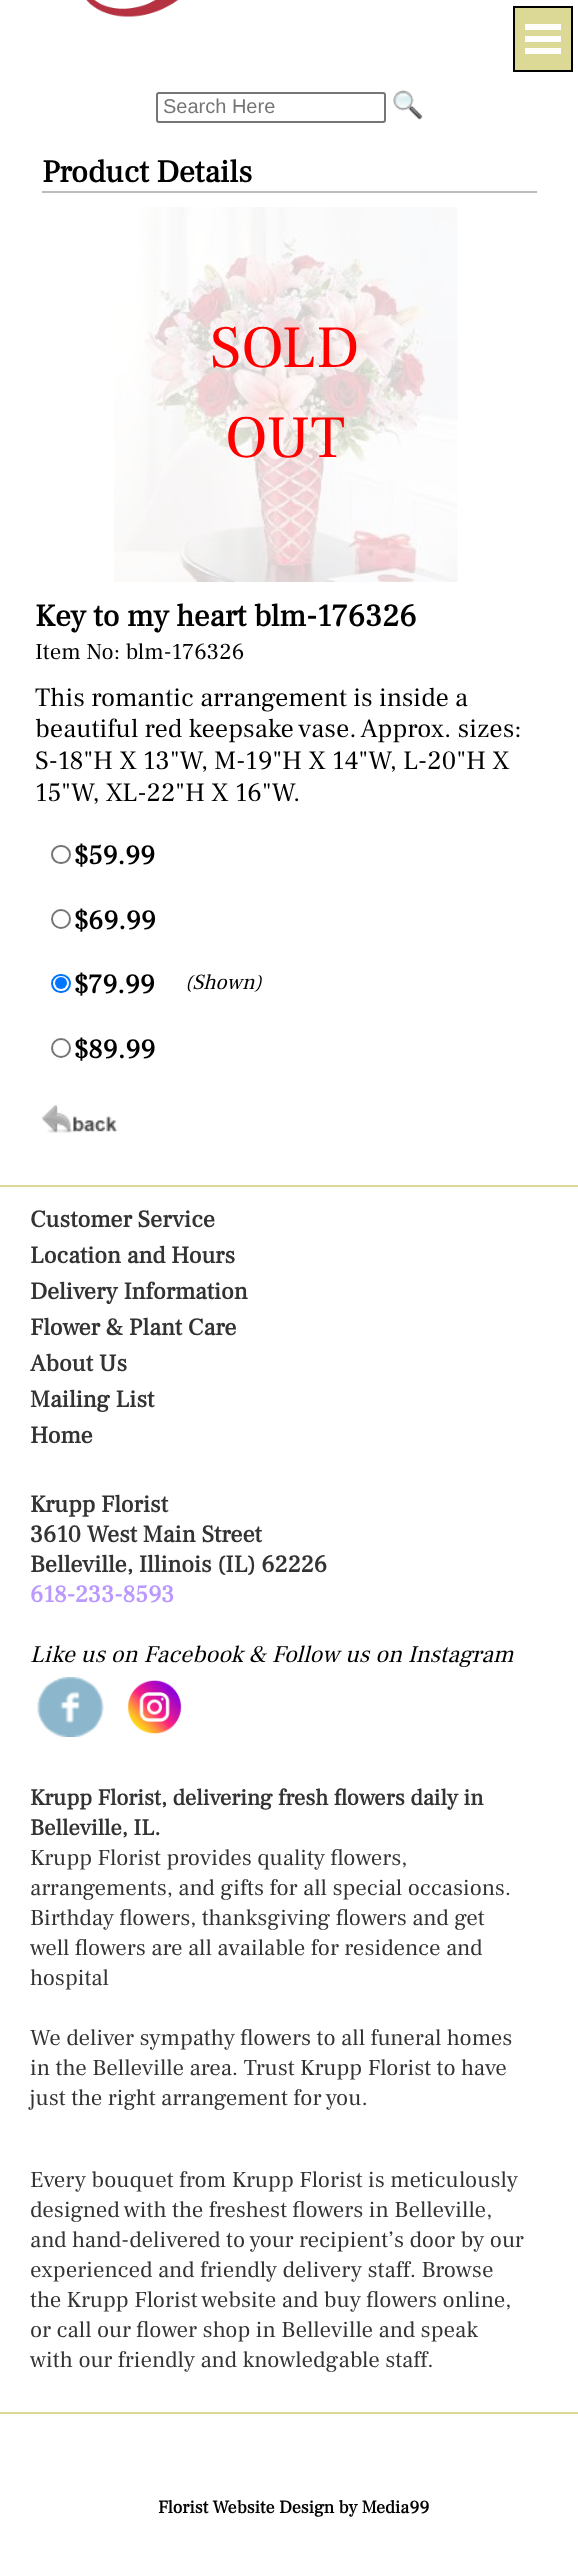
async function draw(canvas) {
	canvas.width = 578;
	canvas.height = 2550;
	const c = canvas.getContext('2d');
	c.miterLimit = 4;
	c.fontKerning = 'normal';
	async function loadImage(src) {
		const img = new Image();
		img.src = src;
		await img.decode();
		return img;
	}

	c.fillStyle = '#fff';
	c.fillRect(0, 0, 578, 2550);
	c.fillStyle = '#dbd995';
	c.beginPath();
	c.rect(514, 7, 58, 64);
	c.fill();
	c.strokeStyle = '#000';
	c.lineWidth = 2;
	c.stroke();
	for (const [x, y, w, h, color] of [
		[525, 24, 36, 6, '#fff'],
		[525, 36, 36, 6, '#fff'],
		[525, 48, 36, 6, '#fff'],
	]) {
		c.fillStyle = color;
		c.fillRect(x, y, w, h);
	}
	c.drawImage(await loadImage('img1.png'), 86, 0, 93, 17);
	c.beginPath();
	c.roundRect(157, 93, 228, 29, 2);
	c.strokeStyle = '#767676';
	c.stroke();
	c.font = '20px Liberation Sans';
	c.fillStyle = '#757575';
	c.fillText('Search Here', 163, 113);
	c.drawImage(await loadImage('img2.png'), 393, 90, 30, 30);
	c.fillStyle = '#bcbcbc';
	c.fillRect(42, 191, 495, 2);
	c.font = 'bold 31.75px Frank Ruhl Libre';
	c.fillStyle = '#000';
	c.fillText('Product Details', 42, 182);
	c.drawImage(await loadImage('img3.png'), 114, 207, 344, 375);
	c.font = '60px Frank Ruhl Libre';
	c.fillStyle = '#f00';
	c.fillText('SOLD', 210, 367);
	c.fillText('OUT', 225, 457);
	c.font = 'bold 31.25px Frank Ruhl Libre';
	c.fillStyle = '#000';
	c.fillText('Key to my heart blm-176326', 35, 626);
	c.font = '22.8px Frank Ruhl Libre';
	c.fillText('Item No: blm-176326', 35, 659);
	c.font = '26.4px Frank Ruhl Libre';
	for (const [text, x, y] of [
		['This romantic arrangement is inside a', 35, 706],
		['beautiful red keepsake vase. Approx. sizes:', 35, 737],
		['S-18"H X 13"W, M-19"H X 14"W, L-20"H X', 35, 769],
		['15"W, XL-22"H X 16"W.', 35, 801],
	]) {
		c.fillText(text, x, y);
	}
	c.beginPath();
	c.roundRect(52, 846, 18, 17, 8.5);
	c.stroke();
	c.font = 'bold 27px Frank Ruhl Libre';
	c.fillText('$59.99', 74, 864);
	c.beginPath();
	c.arc(61, 919, 9, 0, 2 * Math.PI);
	c.stroke();
	c.fillText('$69.99', 74, 929);
	c.beginPath();
	c.roundRect(52, 975, 18, 17, 8.5);
	c.strokeStyle = '#0075ff';
	c.stroke();
	c.fillStyle = '#0075ff';
	c.beginPath();
	c.arc(61, 983, 6, 0, 2 * Math.PI);
	c.fill();
	c.fillStyle = '#000';
	c.fillText('$79.99', 74, 993);
	c.font = 'italic 21.5px Frank Ruhl Libre';
	c.fillText('(Shown)', 185, 989);
	c.beginPath();
	c.arc(61, 1048, 9, 0, 2 * Math.PI);
	c.strokeStyle = '#767676';
	c.stroke();
	c.font = 'bold 27px Frank Ruhl Libre';
	c.fillText('$89.99', 74, 1058);
	c.drawImage(await loadImage('img4.png'), 42, 1105, 76, 28);
	c.fillStyle = '#dbd995';
	c.fillRect(0, 1185, 578, 2);
	c.fillRect(0, 2412, 578, 2);
	c.font = 'bold 24px Frank Ruhl Libre';
	c.fillStyle = '#333';
	for (const [text, x, y] of [
		['Customer Service', 30, 1227],
		['Location and Hours', 30, 1263],
		['Delivery Information', 30, 1299],
		['Flower & Plant Care', 30, 1335],
		['About Us', 30, 1371],
		['Mailing List', 30, 1407],
		['Home', 30, 1443],
		['Krupp Florist', 30, 1512],
		['3610 West Main Street', 30, 1542],
		['Belleville, Illinois (IL) 62226', 30, 1572],
	]) {
		c.fillText(text, x, y);
	}
	c.fillStyle = '#ba98ff';
	c.fillText('618-233-8593', 30, 1602);
	c.font = 'italic 24px Frank Ruhl Libre';
	c.fillStyle = '#000';
	c.fillText('Like us on Facebook & Follow us on Instagram', 30, 1662);
	c.drawImage(await loadImage('img5.png'), 37, 1677, 67, 60);
	c.drawImage(await loadImage('img6.png'), 127, 1680, 55, 54);
	c.font = 'bold 22.8px Frank Ruhl Libre';
	c.fillStyle = '#333';
	c.fillText('Krupp Florist, delivering fresh flowers daily in', 30, 1805);
	c.fillText('Belleville, IL.', 30, 1835);
	c.font = '22.8px Frank Ruhl Libre';
	for (const [text, x, y] of [
		['Krupp Florist provides quality flowers,', 30, 1865],
		['arrangements, and gifts for all special occasions.', 30, 1895],
		['Birthday flowers, thanksgiving flowers and get', 30, 1925],
		['well flowers are all available for residence and', 30, 1955],
		['hospital', 30, 1985],
		['We deliver sympathy flowers to all funeral homes', 30, 2045],
		['in the Belleville area. Trust Krupp Florist to have', 30, 2075],
		['just the right arrangement for you.', 30, 2105],
		['Every bouquet from Krupp Florist is meticulously', 30, 2187],
		['designed with the freshest flowers in Belleville,', 30, 2217],
		['and hand-delivered to your recipient’s door by our', 30, 2247],
		['experienced and friendly delivery staff. Browse', 30, 2277],
		['the Krupp Florist website and buy flowers online,', 30, 2307],
		['or call our flower shop in Belleville and speak', 30, 2337],
		['with our friendly and knowledgable staff.', 30, 2367],
	]) {
		c.fillText(text, x, y);
	}
	c.font = 'bold 18px Frank Ruhl Libre';
	c.fillStyle = '#000';
	c.fillText('Florist Website Design by Media99', 158, 2513);
}

draw(document.querySelector('canvas'));
